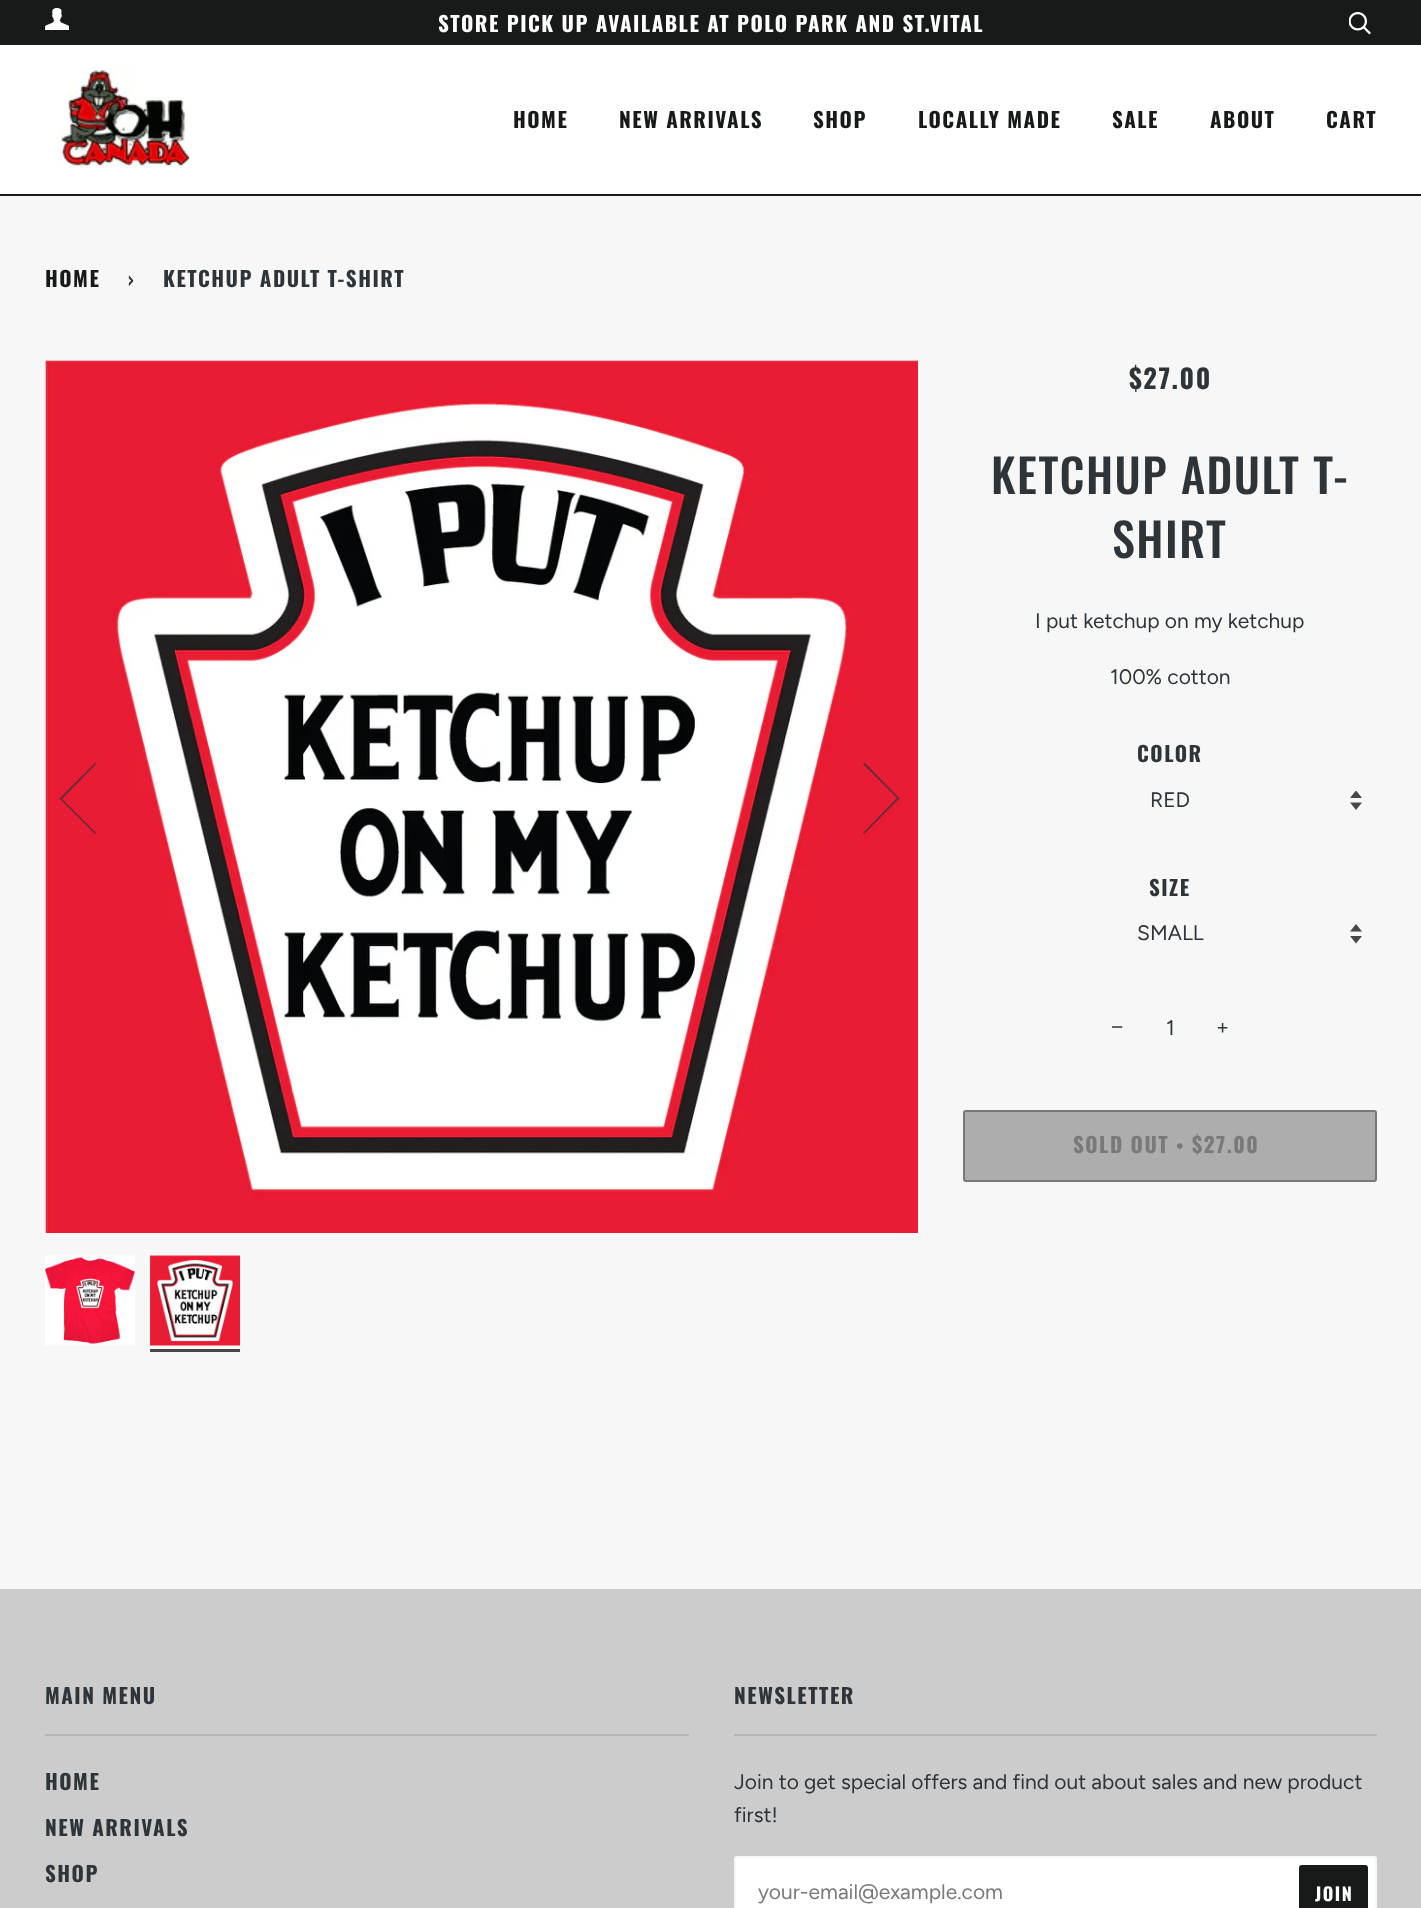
async function draw(canvas) {
	canvas.width = 1421;
	canvas.height = 1908;
	const c = canvas.getContext('2d');
	c.miterLimit = 4;
	c.fontKerning = 'normal';
	async function loadImage(src) {
		const img = new Image();
		img.src = src;
		await img.decode();
		return img;
	}

	c.fillStyle = '#fff';
	c.fillRect(0, 0, 1421, 1908);
	c.fillStyle = '#181919';
	c.fillRect(0, 0, 1421, 45);
	c.drawImage(await loadImage('img1.png'), 45, 8, 24, 22);
	c.letterSpacing = '1.5px';
	c.font = 'bold 21px Oswald';
	c.fillStyle = '#fff';
	c.fillText('STORE PICK UP AVAILABLE AT POLO PARK AND ST.VITAL', 438, 32);
	c.drawImage(await loadImage('img2.png'), 1349, 12, 22, 23);
	c.fillStyle = '#181919';
	c.fillRect(0, 194, 1421, 2);
	c.drawImage(await loadImage('img3.png'), 58, 67, 132, 101);
	for (const [text, x, y] of [
		['HOME', 513, 128],
		['NEW ARRIVALS', 619, 128],
		['SHOP', 813, 128],
		['LOCALLY MADE', 918, 128],
		['SALE', 1112, 128],
		['ABOUT', 1210, 128],
		['CART', 1326, 128],
	]) {
		c.fillText(text, x, y);
	}
	c.fillStyle = '#f7f7f7';
	c.fillRect(0, 196, 1421, 1393);
	c.fillStyle = '#181919';
	c.fillText('HOME', 45, 287);
	c.fillStyle = '#2e3438';
	c.fillText('›', 128, 287);
	c.fillText('KETCHUP ADULT T-SHIRT', 163, 287);
	c.drawImage(await loadImage('img4.png'), 45, 360, 873, 873);
	c.fillStyle = '#5d2e37';
	c.beginPath();
	c.moveTo(60, 799);
	c.lineTo(95, 834);
	c.lineTo(96, 833);
	c.lineTo(62, 799);
	c.lineTo(96, 764);
	c.lineTo(95, 763);
	c.lineTo(59, 799);
	c.closePath();
	c.fill();
	c.beginPath();
	c.moveTo(899, 798);
	c.lineTo(865, 763);
	c.lineTo(863, 764);
	c.lineTo(897, 798);
	c.lineTo(863, 833);
	c.lineTo(864, 834);
	c.lineTo(900, 798);
	c.closePath();
	c.fill();
	c.drawImage(await loadImage('img5.png'), 45, 1255, 90, 91);
	c.drawImage(await loadImage('img6.png'), 150, 1255, 90, 91);
	c.fillStyle = '#464747';
	c.fillRect(150, 1349, 90, 3);
	c.font = 'bold 26.5px Oswald';
	c.fillStyle = '#2e3438';
	c.fillText('$27.00', 1129, 389);
	c.font = '500 46.25px Oswald';
	c.fillText('KETCHUP ADULT T-', 991, 494);
	c.fillText('SHIRT', 1112, 558);
	c.letterSpacing = '0px';
	c.font = '21px Figtree';
	c.fillText('I put ketchup on my ketchup', 1035, 628);
	c.fillText('100% cotton', 1110, 684);
	c.letterSpacing = '1.5px';
	c.font = 'bold 21px Oswald';
	c.fillText('COLOR', 1137, 762);
	c.drawImage(await loadImage('img7.png'), 1350, 791, 12, 19);
	c.letterSpacing = '0px';
	c.font = '21px Figtree';
	c.fillText('RED', 1150, 807);
	c.letterSpacing = '1.5px';
	c.font = 'bold 21px Oswald';
	c.fillText('SIZE', 1149, 896);
	c.drawImage(await loadImage('img8.png'), 1350, 924, 12, 20);
	c.letterSpacing = '0px';
	c.font = '21px Figtree';
	c.fillText('SMALL', 1137, 940);
	c.font = '21px Liberation Sans';
	c.fillText('−', 1111, 1034);
	c.font = '21px Figtree';
	c.fillText('1', 1166, 1035);
	c.fillText('+', 1216, 1034);
	c.fillStyle = '#adadad';
	c.beginPath();
	c.roundRect(963, 1110, 414, 72, 3);
	c.fill();
	c.beginPath();
	c.roundRect(964, 1111, 412, 70, 2);
	c.strokeStyle = '#0000004d';
	c.lineWidth = 2;
	c.stroke();
	c.letterSpacing = '1.5px';
	c.font = 'bold 21px Oswald';
	c.fillStyle = '#797979';
	c.fillText('SOLD OUT', 1073, 1153);
	c.font = 'bold 21px Liberation Serif';
	c.fillText('•', 1176, 1153);
	c.font = 'bold 21px Oswald';
	c.fillText('$27.00', 1192, 1153);
	c.fillStyle = '#ccc';
	c.fillRect(0, 1589, 1421, 319);
	c.fillStyle = '#2e3438';
	c.fillText('MAIN MENU', 45, 1704);
	c.fillStyle = '#b4b5b6';
	c.fillRect(45, 1734, 644, 2);
	c.fillStyle = '#2e3438';
	for (const [text, x, y] of [
		['HOME', 45, 1790],
		['NEW ARRIVALS', 45, 1836],
		['SHOP', 45, 1882],
		['NEWSLETTER', 734, 1704],
	]) {
		c.fillText(text, x, y);
	}
	c.fillStyle = '#b4b5b6';
	c.fillRect(734, 1734, 643, 2);
	c.letterSpacing = '0px';
	c.font = '21px Figtree';
	c.fillStyle = '#2e3438';
	c.fillText('Join to get special offers and find out about sales and new product', 734, 1789);
	c.fillText('first!', 734, 1822);
	c.fillStyle = '#fff';
	c.beginPath();
	c.roundRect(735, 1857, 641, 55, 2);
	c.fill();
	c.strokeStyle = '#f7f7f7';
	c.stroke();
	c.fillStyle = '#797979';
	c.fillText('your-email@example.com', 758, 1899);
	c.fillStyle = '#181919';
	c.beginPath();
	c.roundRect(1299, 1865, 69, 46, 3);
	c.fill();
	c.letterSpacing = '1.5px';
	c.font = 'bold 18px Oswald';
	c.fillStyle = '#fff';
	c.fillText('JOIN', 1315, 1901);
}

draw(document.querySelector('canvas'));
